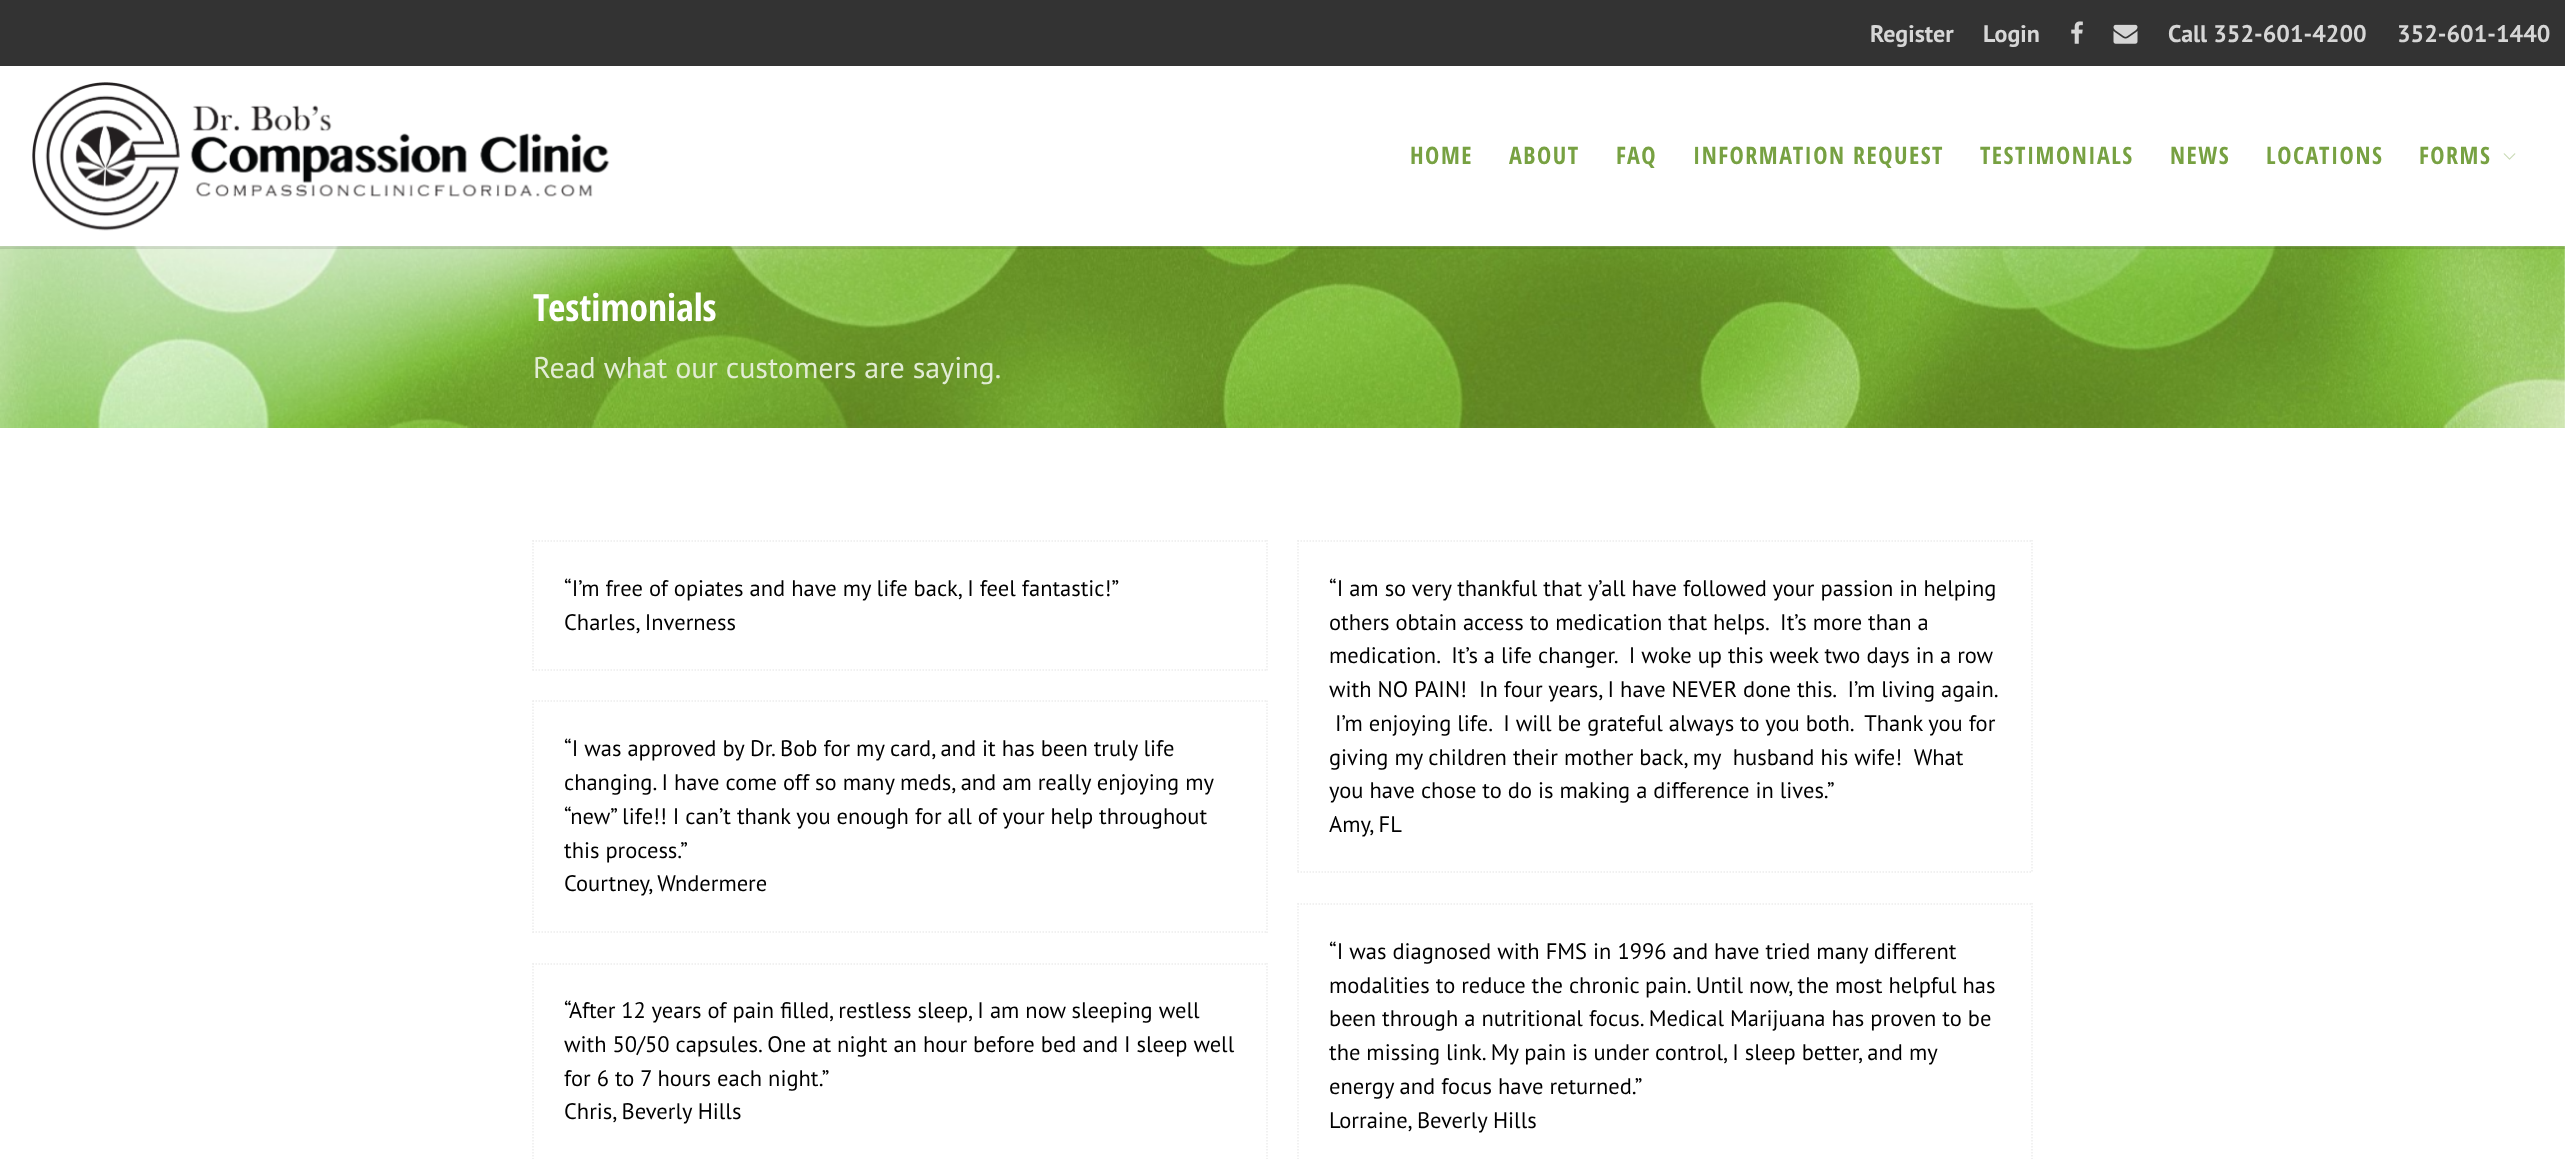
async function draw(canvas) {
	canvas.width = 2565;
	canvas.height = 1159;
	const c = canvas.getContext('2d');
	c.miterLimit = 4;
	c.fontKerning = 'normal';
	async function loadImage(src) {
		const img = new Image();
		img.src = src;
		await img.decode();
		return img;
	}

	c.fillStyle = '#fff';
	c.fillRect(0, 0, 2565, 1159);
	c.fillStyle = '#333';
	c.fillRect(0, 0, 2565, 66);
	c.font = 'bold 24px PT Sans';
	c.fillStyle = '#d6d6d6';
	c.fillText('Register', 1870, 42);
	c.fillText('Login', 1983, 42);
	c.drawImage(await loadImage('img1.png'), 2071, 21, 12, 23);
	c.drawImage(await loadImage('img2.png'), 2113, 24, 25, 20);
	c.fillText('Call 352-601-4200', 2168, 42);
	c.fillText('352-601-1440', 2397, 42);
	c.drawImage(await loadImage('img5.png'), 0, 246, 2565, 182);
	c.fillStyle = '#0000001a';
	c.fillRect(0, 246, 2565, 3);
	c.drawImage(await loadImage('img3.png'), 32, 82, 578, 149);
	c.letterSpacing = '1.5px';
	c.font = 'bold 24px Open Sans Condensed';
	c.fillStyle = '#77a142';
	for (const [text, x, y] of [
		['HOME', 1410, 164],
		['ABOUT', 1509, 164],
		['FAQ', 1616, 164],
		['INFORMATION REQUEST', 1693, 164],
		['TESTIMONIALS', 1980, 164],
		['NEWS', 2170, 164],
		['LOCATIONS', 2266, 164],
		['FORMS', 2419, 164],
	]) {
		c.fillText(text, x, y);
	}
	c.drawImage(await loadImage('img4.png'), 2503, 153, 13, 7);
	c.letterSpacing = '0px';
	c.font = 'bold 37.5px Open Sans Condensed';
	c.fillStyle = '#fff';
	c.fillText('Testimonials', 533, 321);
	c.font = '30px PT Sans';
	c.fillStyle = '#e2ecd5';
	c.fillText('Read what our customers are saying.', 533, 378);
	c.beginPath();
	c.moveTo(532.5, 541);
	c.lineTo(1267.5, 541);
	c.strokeStyle = '#ededed';
	c.lineWidth = 1.5;
	c.setLineDash([1.5, 1.5]);
	c.stroke();
	c.beginPath();
	c.moveTo(1267, 540);
	c.lineTo(1267, 670.5);
	c.stroke();
	c.beginPath();
	c.moveTo(532.5, 670);
	c.lineTo(1267.5, 670);
	c.stroke();
	c.beginPath();
	c.moveTo(533, 540);
	c.lineTo(533, 670.5);
	c.stroke();
	c.font = '22.5px PT Sans';
	c.fillStyle = '#000';
	c.fillText('“I’m free of opiates and have my life back, I feel fantastic!”', 564, 596);
	c.fillText('Charles, Inverness', 564, 630);
	c.beginPath();
	c.moveTo(1297.5, 541);
	c.lineTo(2032.5, 541);
	c.stroke();
	c.beginPath();
	c.moveTo(2032, 540);
	c.lineTo(2032, 873);
	c.stroke();
	c.beginPath();
	c.moveTo(1297.5, 872);
	c.lineTo(2032.5, 872);
	c.stroke();
	c.beginPath();
	c.moveTo(1298, 540);
	c.lineTo(1298, 873);
	c.stroke();
	for (const [text, x, y] of [
		['“I am so very thankful that y’all have followed your passion in helping', 1329, 596],
		['others obtain access to medication that helps.  It’s more than a', 1329, 630],
		['medication.  It’s a life changer.  I woke up this week two days in a row', 1329, 663],
		['with NO PAIN!  In four years, I have NEVER done this.  I’m living again.', 1329, 697],
		['I’m enjoying life.  I will be grateful always to you both.  Thank you for', 1335, 731],
		['giving my children their mother back, my  husband his wife!  What', 1329, 765],
		['you have chose to do is making a difference in lives.”', 1329, 798],
		['Amy, FL', 1329, 832],
	]) {
		c.fillText(text, x, y);
	}
	c.beginPath();
	c.moveTo(532.5, 701);
	c.lineTo(1267.5, 701);
	c.stroke();
	c.beginPath();
	c.moveTo(1267, 700.5);
	c.lineTo(1267, 933);
	c.stroke();
	c.beginPath();
	c.moveTo(532.5, 932);
	c.lineTo(1267.5, 932);
	c.stroke();
	c.beginPath();
	c.moveTo(533, 700.5);
	c.lineTo(533, 933);
	c.stroke();
	for (const [text, x, y] of [
		['“I was approved by Dr. Bob for my card, and it has been truly life', 564, 756],
		['changing. I have come off so many meds, and am really enjoying my', 564, 790],
		['“new” life!! I can’t thank you enough for all of your help throughout', 564, 824],
		['this process.”', 564, 858],
		['Courtney, Wndermere', 564, 891],
	]) {
		c.fillText(text, x, y);
	}
	c.beginPath();
	c.moveTo(532.5, 964);
	c.lineTo(1267.5, 964);
	c.stroke();
	c.beginPath();
	c.moveTo(1267, 963);
	c.lineTo(1267, 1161);
	c.stroke();
	c.beginPath();
	c.moveTo(533, 963);
	c.lineTo(533, 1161);
	c.stroke();
	for (const [text, x, y] of [
		['“After 12 years of pain filled, restless sleep, I am now sleeping well', 564, 1018],
		['with 50/50 capsules. One at night an hour before bed and I sleep well', 564, 1052],
		['for 6 to 7 hours each night.”', 564, 1086],
		['Chris, Beverly Hills', 564, 1119],
	]) {
		c.fillText(text, x, y);
	}
	c.beginPath();
	c.moveTo(1297.5, 904);
	c.lineTo(2032.5, 904);
	c.stroke();
	c.beginPath();
	c.moveTo(2032, 903);
	c.lineTo(2032, 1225.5);
	c.stroke();
	c.beginPath();
	c.moveTo(1298, 903);
	c.lineTo(1298, 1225.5);
	c.stroke();
	for (const [text, x, y] of [
		['“I was diagnosed with FMS in 1996 and have tried many different', 1329, 959],
		['modalities to reduce the chronic pain. Until now, the most helpful has', 1329, 993],
		['been through a nutritional focus. Medical Marijuana has proven to be', 1329, 1026],
		['the missing link. My pain is under control, I sleep better, and my', 1329, 1060],
		['energy and focus have returned.”', 1329, 1094],
		['Lorraine, Beverly Hills', 1329, 1128],
	]) {
		c.fillText(text, x, y);
	}
}

draw(document.querySelector('canvas'));
